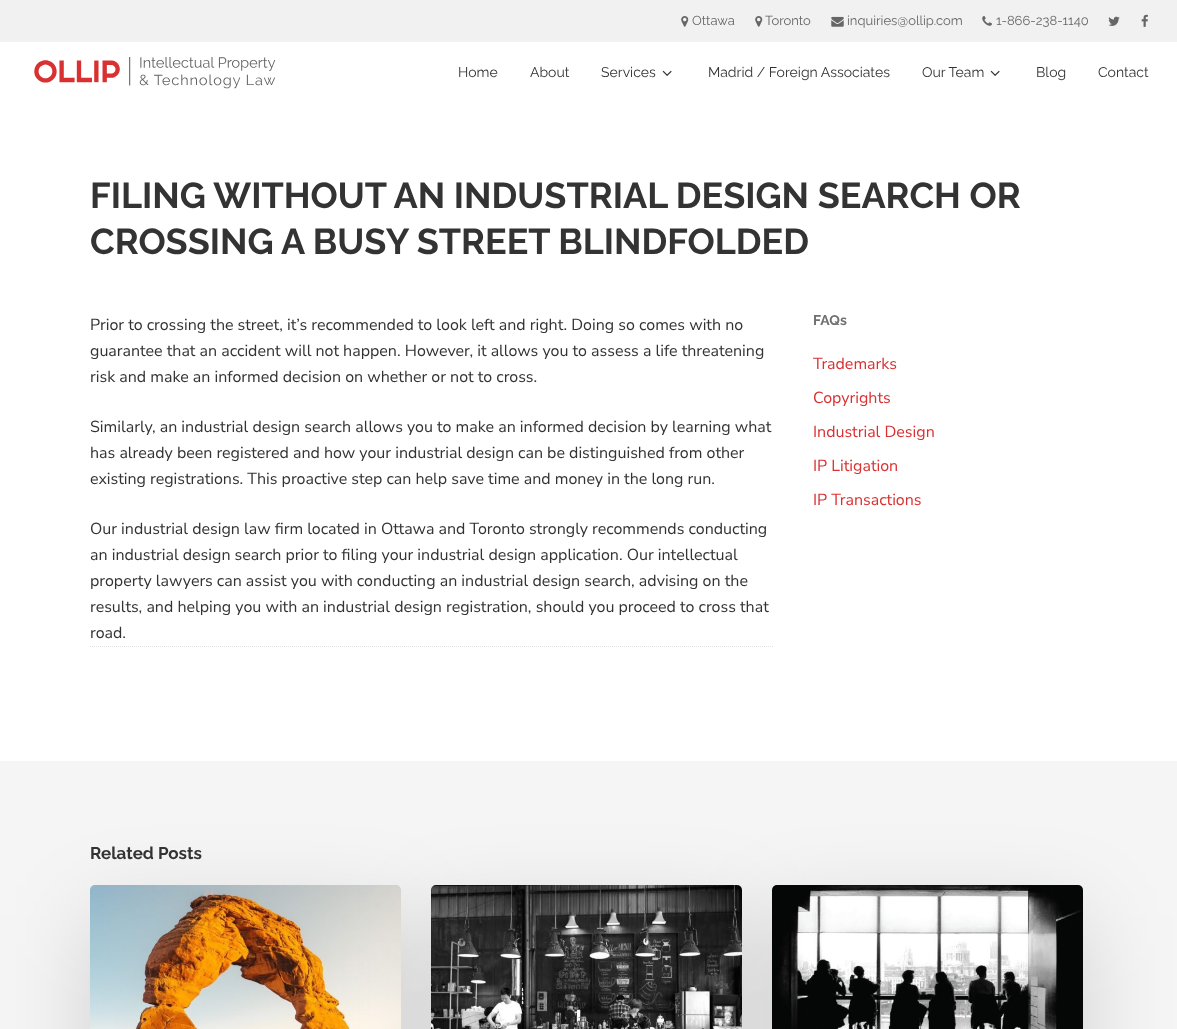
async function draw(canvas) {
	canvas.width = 1177;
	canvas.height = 1029;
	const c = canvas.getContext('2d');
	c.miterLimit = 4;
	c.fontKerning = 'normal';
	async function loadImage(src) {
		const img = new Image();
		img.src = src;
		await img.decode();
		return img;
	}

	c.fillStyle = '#fff';
	c.fillRect(0, 0, 1177, 1029);
	c.fillStyle = '#f5f5f5';
	c.fillRect(0, 761, 1177, 268);
	c.fillStyle = '#f1f1f1';
	c.fillRect(0, 0, 1177, 42);
	c.drawImage(await loadImage('img1.png'), 681, 16, 8, 11);
	c.font = '13px Raleway';
	c.fillStyle = '#666';
	c.fillText('Ottawa', 692, 25);
	c.drawImage(await loadImage('img1.png'), 755, 16, 8, 11);
	c.fillText('Toronto', 765, 25);
	c.drawImage(await loadImage('img2.png'), 831, 16, 13, 11);
	c.fillText('inquiries@ollip.com', 847, 25);
	c.drawImage(await loadImage('img3.png'), 982, 16, 10, 10);
	c.fillText('1-866-238-1140', 996, 25);
	c.drawImage(await loadImage('img4.png'), 1108, 16, 12, 10);
	c.drawImage(await loadImage('img5.png'), 1141, 14, 7, 13);
	c.drawImage(await loadImage('img6.png'), 34, 57, 242, 32);
	c.font = '14px Raleway';
	c.fillStyle = '#333';
	for (const [text, x, y] of [
		['Home', 458, 77],
		['About', 530, 77],
		['Services', 601, 77],
	]) {
		c.fillText(text, x, y);
	}
	c.drawImage(await loadImage('img7.png'), 662, 70, 10, 6);
	c.fillText('Madrid / Foreign Associates', 708, 77);
	c.fillText('Our Team', 922, 77);
	c.drawImage(await loadImage('img7.png'), 990, 70, 10, 6);
	c.fillText('Blog', 1036, 77);
	c.fillText('Contact', 1098, 77);
	c.font = 'bold 36px Raleway';
	c.fillText('FILING WITHOUT AN INDUSTRIAL DESIGN SEARCH OR', 90, 208);
	c.fillText('CROSSING A BUSY STREET BLINDFOLDED', 90, 254);
	c.beginPath();
	c.moveTo(90, 646.5);
	c.lineTo(773, 646.5);
	c.strokeStyle = '#e1e1e1';
	c.setLineDash([1, 1]);
	c.stroke();
	c.font = '200 16px Nunito Sans';
	for (const [text, x, y] of [
		['Prior to crossing the street, it’s recommended to look left and right. Doing so comes with no', 90, 330],
		['guarantee that an accident will not happen. However, it allows you to assess a life threatening', 90, 356],
		['risk and make an informed decision on whether or not to cross.', 90, 382],
		['Similarly, an industrial design search allows you to make an informed decision by learning what', 90, 432],
		['has already been registered and how your industrial design can be distinguished from other', 90, 458],
		['existing registrations. This proactive step can help save time and money in the long run.', 90, 484],
		['Our industrial design law firm located in Ottawa and Toronto strongly recommends conducting', 90, 534],
		['an industrial design search prior to filing your industrial design application. Our intellectual', 90, 560],
		['property lawyers can assist you with conducting an industrial design search, advising on the', 90, 586],
		['results, and helping you with an industrial design registration, should you proceed to cross that', 90, 612],
		['road.', 90, 638],
	]) {
		c.fillText(text, x, y);
	}
	c.font = 'bold 14px Raleway';
	c.fillStyle = '#707070';
	c.fillText('FAQs', 813, 325);
	c.font = '200 16px Nunito Sans';
	c.fillStyle = '#d93031';
	for (const [text, x, y] of [
		['Trademarks', 813, 369],
		['Copyrights', 813, 403],
		['Industrial Design', 813, 437],
		['IP Litigation', 813, 471],
		['IP Transactions', 813, 505],
	]) {
		c.fillText(text, x, y);
	}
	c.fillStyle = '#00000024';
	c.filter = 'blur(45px)';
	c.beginPath();
	c.roundRect(90, 915, 311, 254, 5);
	c.fill();
	c.filter = 'none';
	c.drawImage(await loadImage('img8.png'), 90, 885, 311, 144);
	c.filter = 'blur(45px)';
	c.beginPath();
	c.roundRect(431, 915, 311, 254, 5);
	c.fill();
	c.filter = 'none';
	c.drawImage(await loadImage('img9.png'), 431, 885, 311, 144);
	c.filter = 'blur(45px)';
	c.beginPath();
	c.roundRect(772, 915, 311, 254, 5);
	c.fill();
	c.filter = 'none';
	c.drawImage(await loadImage('img10.png'), 772, 885, 311, 144);
	c.font = 'bold 17px Raleway';
	c.fillStyle = '#333';
	c.fillText('Related Posts', 90, 859);
}

draw(document.querySelector('canvas'));
